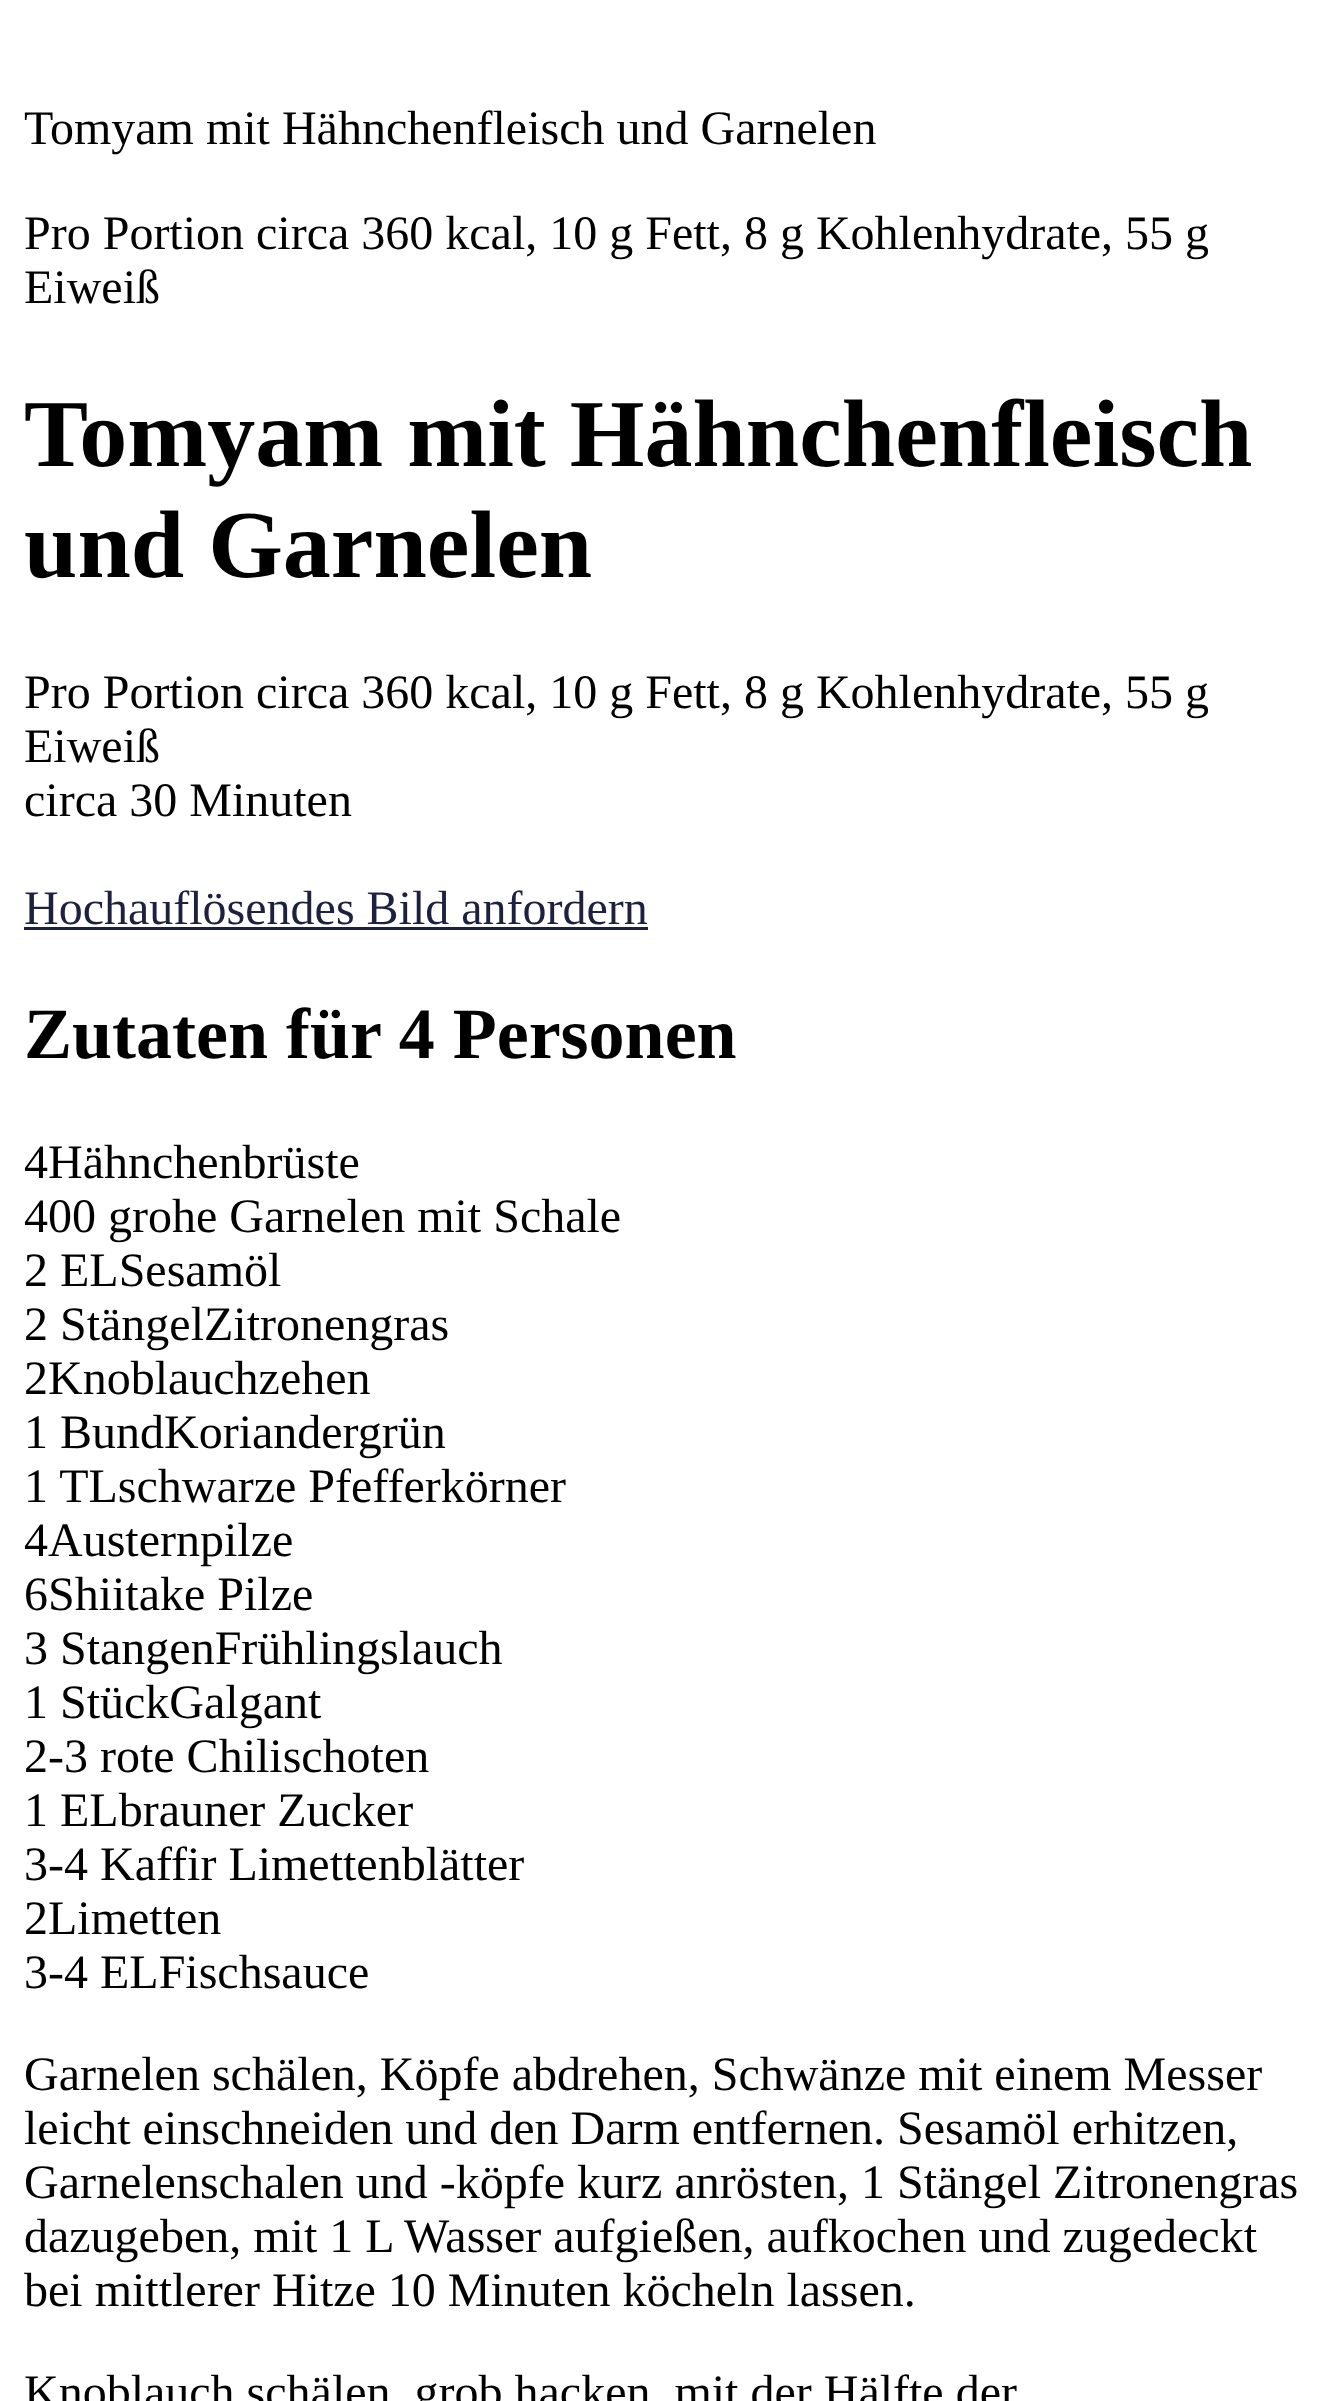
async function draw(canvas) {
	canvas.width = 1325;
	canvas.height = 2401;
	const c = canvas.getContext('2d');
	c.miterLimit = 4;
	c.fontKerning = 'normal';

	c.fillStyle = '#fff';
	c.fillRect(0, 0, 1325, 2401);
	c.font = '48px Liberation Serif';
	c.fillStyle = '#000';
	for (const [text, x, y] of [
		['Tomyam mit Hähnchenfleisch und Garnelen', 24, 144],
		['Pro Portion circa 360 kcal, 10 g Fett, 8 g Kohlenhydrate, 55 g', 24, 249],
		['Eiweiß', 24, 303],
	]) {
		c.fillText(text, x, y);
	}
	c.font = 'bold 96px Liberation Serif';
	c.fillText('Tomyam mit Hähnchenfleisch', 24, 466);
	c.fillText('und Garnelen', 24, 577);
	c.font = '48px Liberation Serif';
	for (const [text, x, y] of [
		['Pro Portion circa 360 kcal, 10 g Fett, 8 g Kohlenhydrate, 55 g', 24, 708],
		['Eiweiß', 24, 762],
		['circa 30 Minuten', 24, 816],
	]) {
		c.fillText(text, x, y);
	}
	c.fillStyle = '#1d213f';
	c.fillText('Hochauflösendes Bild anfordern', 24, 924);
	c.fillRect(24, 927, 624, 3);
	c.font = 'bold 72px Liberation Serif';
	c.fillStyle = '#000';
	c.fillText('Zutaten für 4 Personen', 24, 1058);
	c.font = '48px Liberation Serif';
	for (const [text, x, y] of [
		['4Hähnchenbrüste', 24, 1178],
		['400 grohe Garnelen mit Schale', 24, 1232],
		['2 ELSesamöl', 24, 1286],
		['2 StängelZitronengras', 24, 1340],
		['2Knoblauchzehen', 24, 1394],
		['1 BundKoriandergrün', 24, 1448],
		['1 TLschwarze Pfefferkörner', 24, 1502],
		['4Austernpilze', 24, 1556],
		['6Shiitake Pilze', 24, 1610],
		['3 StangenFrühlingslauch', 24, 1664],
		['1 StückGalgant', 24, 1718],
		['2-3 rote Chilischoten', 24, 1772],
		['1 ELbrauner Zucker', 24, 1826],
		['3-4 Kaffir Limettenblätter', 24, 1880],
		['2Limetten', 24, 1934],
		['3-4 ELFischsauce', 24, 1988],
		['Garnelen schälen, Köpfe abdrehen, Schwänze mit einem Messer', 24, 2090],
		['leicht einschneiden und den Darm entfernen. Sesamöl erhitzen,', 24, 2144],
		['Garnelenschalen und -köpfe kurz anrösten, 1 Stängel Zitronengras', 24, 2198],
		['dazugeben, mit 1 L Wasser aufgießen, aufkochen und zugedeckt', 24, 2252],
		['bei mittlerer Hitze 10 Minuten köcheln lassen.', 24, 2306],
		['Knoblauch schälen, grob hacken, mit der Hälfte der', 24, 2408],
	]) {
		c.fillText(text, x, y);
	}
}

draw(document.querySelector('canvas'));
